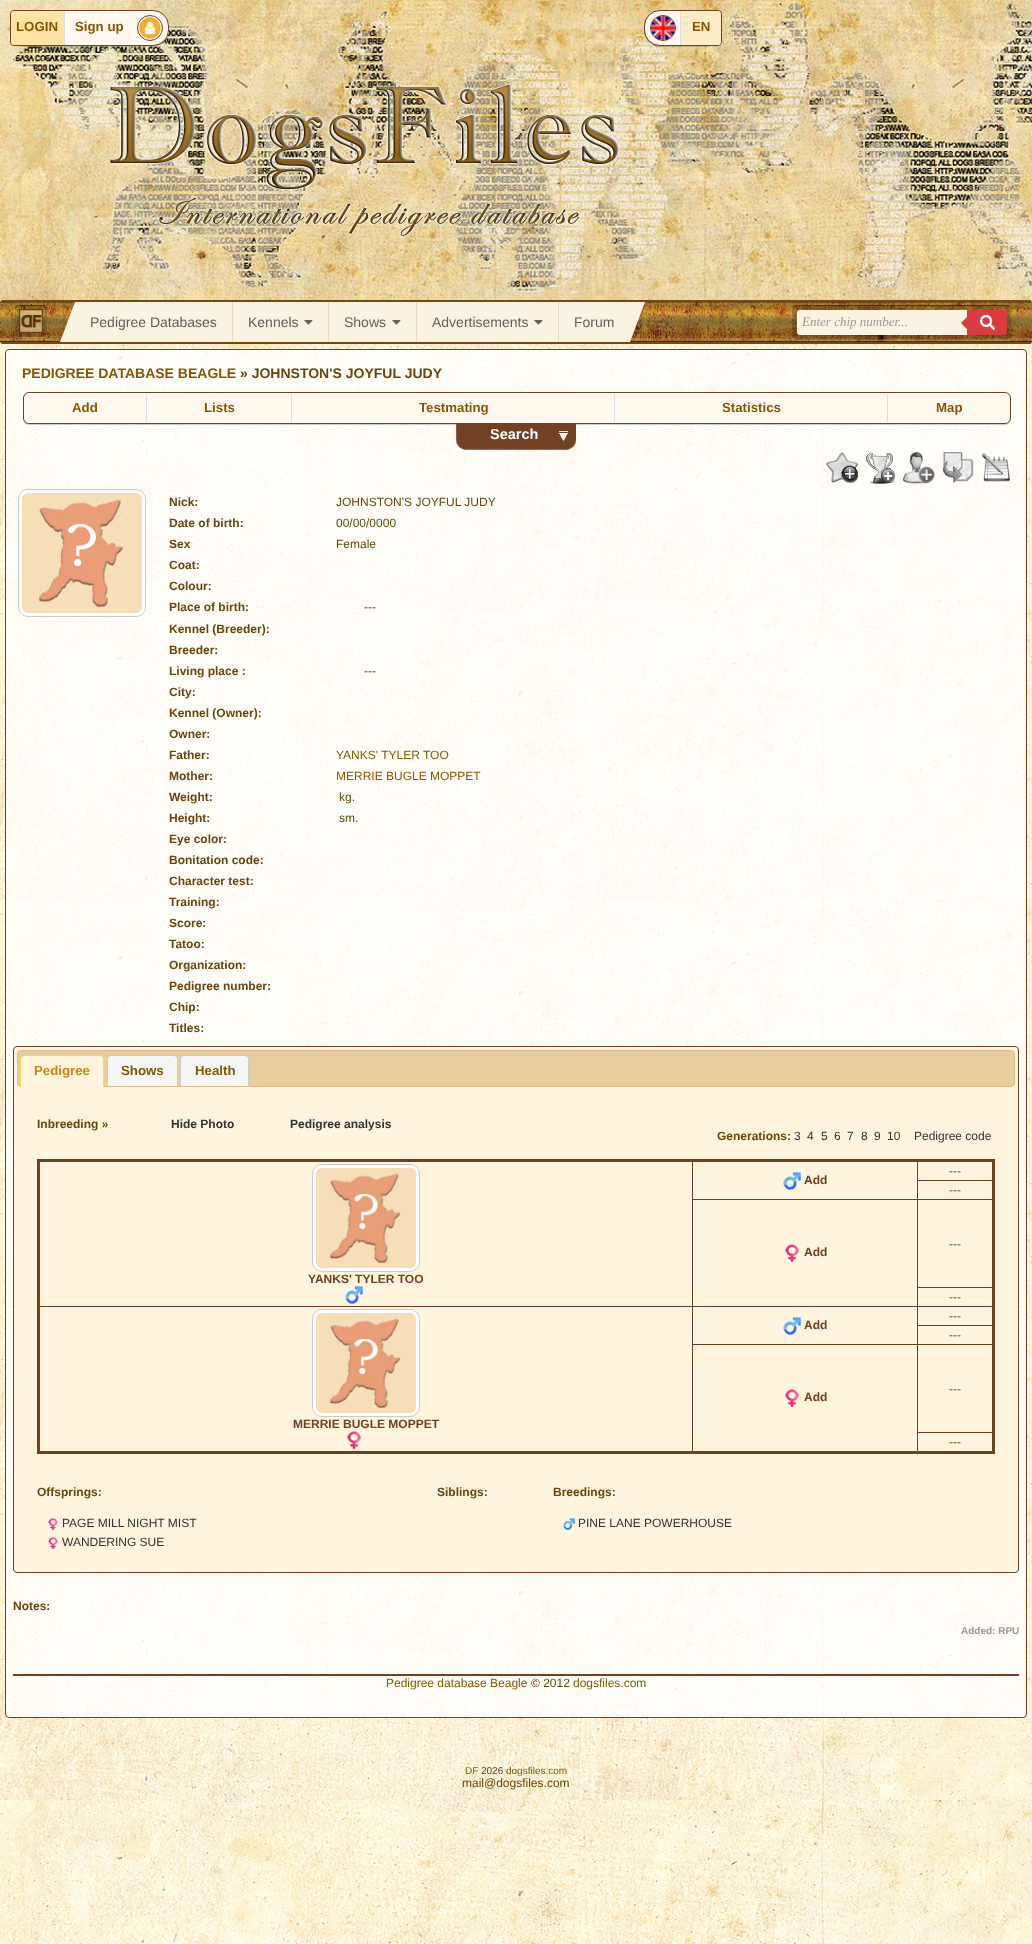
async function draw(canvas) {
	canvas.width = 1032;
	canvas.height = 1944;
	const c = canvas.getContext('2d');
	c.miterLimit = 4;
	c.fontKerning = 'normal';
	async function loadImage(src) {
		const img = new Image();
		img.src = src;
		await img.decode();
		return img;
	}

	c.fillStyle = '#fff';
	c.fillRect(0, 0, 1032, 1944);
	c.drawImage(await loadImage('img1.png'), 0, 300, 1032, 1644);
	c.drawImage(await loadImage('img2.png'), 0, 0, 1032, 300);
	c.fillStyle = '#14141433';
	c.filter = 'blur(0.5px)';
	c.beginPath();
	c.roundRect(10, 11, 159, 36, 16);
	c.fill();
	c.filter = 'none';
	c.fillStyle = '#fff9f0';
	c.beginPath();
	c.roundRect(10.5, 10.5, 158, 35, [3.5, 15.5, 15.5, 3.5]);
	c.fill();
	c.strokeStyle = '#724123';
	c.stroke();
	c.fillStyle = '#ffe4a6';
	c.beginPath();
	c.roundRect(11, 11, 54, 34, [4, 0, 0, 4]);
	c.fill();
	c.fillStyle = '#dae0e5';
	c.fillRect(64, 11, 1, 34);
	c.font = 'bold 13.25px Liberation Sans';
	c.fillStyle = '#895600';
	c.fillText('LOGIN', 16, 31);
	c.beginPath();
	c.arc(150, 28, 12.5, 0, 2 * Math.PI);
	c.stroke();
	c.fillText('Sign up', 75, 31);
	c.drawImage(await loadImage('img3.png'), 139, 17, 23, 23);
	c.fillStyle = '#14141433';
	c.filter = 'blur(0.5px)';
	c.beginPath();
	c.roundRect(644, 11, 78, 36, 16);
	c.fill();
	c.filter = 'none';
	c.fillStyle = '#fff9f0';
	c.beginPath();
	c.roundRect(644.5, 10.5, 77, 35, [15.5, 3.5, 3.5, 15.5]);
	c.fill();
	c.stroke();
	c.fillStyle = '#dae0e5';
	c.fillRect(680, 11, 1, 34);
	c.beginPath();
	c.arc(663, 28, 12.5, 0, 2 * Math.PI);
	c.stroke();
	c.drawImage(await loadImage('img4.png'), 651, 16, 24, 24);
	c.fillStyle = '#fdecc5';
	c.beginPath();
	c.roundRect(681, 11, 40, 34, [0, 4, 4, 0]);
	c.fill();
	c.fillStyle = '#895600';
	c.fillText('EN', 692, 31);
	c.drawImage(await loadImage('img5.png'), 108, 83, 512, 155);
	c.fillStyle = '#7c4708';
	c.beginPath();
	c.roundRect(0, 300, 1032, 44, 3);
	c.fill();
	c.drawImage(await loadImage('img6.png'), 630, 302, 100, 40);
	c.fillRect(2, 300, 1029, 1);
	c.fillRect(2, 343, 1029, 1);
	c.drawImage(await loadImage('img7.png'), 0, 302, 75, 40);
	c.fillStyle = '#ffffff33';
	c.beginPath();
	c.moveTo(15, 333);
	c.bezierCurveTo(15, 338.5, 18.5, 338, 23, 338);
	c.lineTo(39, 338);
	c.bezierCurveTo(43.5, 338, 47, 338.5, 47, 333);
	c.bezierCurveTo(47, 335, 45, 337, 43, 337);
	c.lineTo(19, 337);
	c.bezierCurveTo(17, 337, 15, 335, 15, 333);
	c.closePath();
	c.fill();
	c.fillStyle = '#00000026';
	c.beginPath();
	c.roundRect(15, 305, 32, 32, 4);
	c.fill();
	c.fillStyle = '#00000066';
	c.beginPath();
	c.moveTo(19, 306);
	c.lineTo(43, 306);
	c.bezierCurveTo(45, 306, 47, 308, 47, 310);
	c.bezierCurveTo(47, 304.5, 43.5, 305, 39, 305);
	c.lineTo(23, 305);
	c.bezierCurveTo(18.5, 305, 15, 304.5, 15, 310);
	c.bezierCurveTo(15, 308, 17, 306, 19, 306);
	c.closePath();
	c.fill();
	c.drawImage(await loadImage('img8.png'), 19, 309, 24, 24);
	c.fillStyle = '#faf3e2';
	c.fillRect(75, 302, 157, 40);
	c.beginPath();
	c.moveTo(75, 302);
	c.lineTo(75, 342);
	c.lineTo(60, 342);
	c.closePath();
	c.fill();
	c.font = '14px Liberation Sans';
	c.fillStyle = '#64615a';
	c.fillText('Pedigree Databases', 90, 327);
	c.fillStyle = '#faf3e2';
	c.fillRect(233, 302, 95, 40);
	c.fillStyle = '#e9dbc3';
	c.fillRect(232, 302, 1, 40);
	c.fillStyle = '#64615a';
	c.fillText('Kennels', 248, 327);
	c.drawImage(await loadImage('img9.png'), 304, 320, 9, 5);
	c.fillStyle = '#faf3e2';
	c.fillRect(329, 302, 87, 40);
	c.fillStyle = '#e9dbc3';
	c.fillRect(328, 302, 1, 40);
	c.fillStyle = '#64615a';
	c.fillText('Shows', 344, 327);
	c.drawImage(await loadImage('img9.png'), 392, 320, 9, 5);
	c.fillStyle = '#faf3e2';
	c.fillRect(417, 302, 141, 40);
	c.fillStyle = '#e9dbc3';
	c.fillRect(416, 302, 1, 40);
	c.fillStyle = '#64615a';
	c.fillText('Advertisements', 432, 327);
	c.drawImage(await loadImage('img9.png'), 534, 320, 9, 5);
	c.fillStyle = '#faf3e2';
	c.fillRect(559, 302, 71, 40);
	c.fillStyle = '#e9dbc3';
	c.fillRect(558, 302, 1, 40);
	c.fillStyle = '#64615a';
	c.fillText('Forum', 574, 327);
	c.fillStyle = '#faf3e2';
	c.beginPath();
	c.moveTo(630, 342);
	c.lineTo(630, 302);
	c.lineTo(645, 302);
	c.closePath();
	c.fill();
	c.drawImage(await loadImage('img10.png'), 730, 302, 302, 40);
	c.fillStyle = '#ffffff33';
	c.beginPath();
	c.moveTo(792, 335);
	c.bezierCurveTo(792, 338, 794, 341, 797, 341);
	c.lineTo(1008, 341);
	c.bezierCurveTo(1011, 340, 1012, 338, 1012, 335);
	c.bezierCurveTo(1012, 338, 1010, 340, 1007, 340);
	c.lineTo(797, 340);
	c.bezierCurveTo(794, 340, 792, 338, 792, 335);
	c.closePath();
	c.fill();
	c.fillStyle = '#00000026';
	c.beginPath();
	c.roundRect(792, 305, 220, 35, 5);
	c.fill();
	c.fillStyle = '#00000066';
	c.beginPath();
	c.moveTo(797, 306);
	c.lineTo(1007, 306);
	c.bezierCurveTo(1010, 306, 1012, 308, 1012, 311);
	c.bezierCurveTo(1012, 308, 1010, 305, 1007, 305);
	c.lineTo(796, 305);
	c.bezierCurveTo(793, 306, 792, 308, 792, 311);
	c.bezierCurveTo(792, 308, 794, 306, 797, 306);
	c.closePath();
	c.fill();
	c.fillStyle = '#faf3e2';
	c.beginPath();
	c.roundRect(797, 310, 170, 25, [3, 0, 0, 3]);
	c.fill();
	c.font = 'italic 13px Liberation Serif';
	c.fillStyle = '#999';
	c.fillText('Enter chip number...', 802, 326);
	c.fillStyle = '#d83c3c';
	c.beginPath();
	c.roundRect(967, 310, 40, 25, [0, 3, 3, 0]);
	c.fill();
	c.beginPath();
	c.moveTo(969, 315);
	c.lineTo(969, 331);
	c.lineTo(961, 323);
	c.closePath();
	c.fill();
	c.drawImage(await loadImage('img11.png'), 980, 314, 15, 16);
	c.fillStyle = '#ffffffcc';
	c.beginPath();
	c.roundRect(5.5, 349.5, 1021, 1368, 3.5);
	c.fill();
	c.stroke();
	c.font = 'bold 14px Liberation Sans';
	c.fillStyle = '#895600';
	c.fillText('PEDIGREE DATABASE BEAGLE', 22, 378);
	c.fillStyle = '#67460f';
	c.fillText('» JOHNSTON\'S JOYFUL JUDY', 240, 378);
	c.fillStyle = '#14141433';
	c.filter = 'blur(0.5px)';
	c.beginPath();
	c.roundRect(23, 393, 988, 32, 6);
	c.fill();
	c.filter = 'none';
	c.fillStyle = '#fff9f0';
	c.beginPath();
	c.roundRect(23.5, 392.5, 987, 31, 5.5);
	c.fill();
	c.stroke();
	c.fillStyle = '#dae0e5';
	c.fillRect(146, 394, 1, 28);
	c.font = 'bold 13.25px Liberation Sans';
	c.fillStyle = '#895600';
	c.fillText('Add', 72, 412);
	c.fillStyle = '#dae0e5';
	c.fillRect(291, 394, 1, 28);
	c.fillStyle = '#895600';
	c.fillText('Lists', 204, 412);
	c.fillStyle = '#dae0e5';
	c.fillRect(614, 394, 1, 28);
	c.fillStyle = '#895600';
	c.fillText('Testmating', 419, 412);
	c.fillStyle = '#dae0e5';
	c.fillRect(887, 394, 1, 28);
	c.fillStyle = '#895600';
	c.fillText('Statistics', 722, 412);
	c.fillText('Map', 936, 412);
	c.drawImage(await loadImage('img12.png'), 456, 424, 120, 26);
	c.drawImage(await loadImage('img13.png'), 559, 431, 9, 10);
	c.font = 'bold 14.5px Liberation Sans';
	c.fillStyle = '#fff';
	c.fillText('Search', 490, 439);
	c.drawImage(await loadImage('img14.png'), 826, 452, 32, 31);
	c.drawImage(await loadImage('img15.png'), 866, 452, 29, 32);
	c.drawImage(await loadImage('img16.png'), 903, 452, 32, 32);
	c.drawImage(await loadImage('img17.png'), 942, 452, 32, 31);
	c.drawImage(await loadImage('img18.png'), 982, 453, 29, 29);
	c.beginPath();
	c.roundRect(18.5, 489.5, 127, 127, 9.5);
	c.fill();
	c.strokeStyle = '#ccc';
	c.stroke();
	c.drawImage(await loadImage('img19.png'), 22, 493, 120, 120);
	c.font = 'bold 12px Liberation Sans';
	c.fillStyle = '#67460f';
	c.fillText('Nick:', 169, 506);
	c.font = '12px Liberation Sans';
	c.fillText('JOHNSTON\'S JOYFUL JUDY', 336, 506);
	c.font = 'bold 12px Liberation Sans';
	c.fillText('Date of birth:', 169, 527);
	c.font = '12px Liberation Sans';
	c.fillText('00/00/0000', 336, 527);
	c.font = 'bold 12px Liberation Sans';
	c.fillText('Sex', 169, 548);
	c.font = '12px Liberation Sans';
	c.fillText('Female', 336, 548);
	c.font = 'bold 12px Liberation Sans';
	for (const [text, x, y] of [
		['Coat:', 169, 569],
		['Colour:', 169, 590],
		['Place of birth:', 169, 611],
	]) {
		c.fillText(text, x, y);
	}
	c.font = '12px Liberation Sans';
	c.fillText('---', 364, 611);
	c.font = 'bold 12px Liberation Sans';
	for (const [text, x, y] of [
		['Kennel (Breeder):', 169, 633],
		['Breeder:', 169, 654],
		['Living place :', 169, 675],
	]) {
		c.fillText(text, x, y);
	}
	c.font = '12px Liberation Sans';
	c.fillText('---', 364, 675);
	c.font = 'bold 12px Liberation Sans';
	for (const [text, x, y] of [
		['City:', 169, 696],
		['Kennel (Owner):', 169, 717],
		['Owner:', 169, 738],
		['Father:', 169, 759],
	]) {
		c.fillText(text, x, y);
	}
	c.font = '12px Liberation Sans';
	c.fillStyle = '#895600';
	c.fillText('YANKS\' TYLER TOO', 336, 759);
	c.font = 'bold 12px Liberation Sans';
	c.fillStyle = '#67460f';
	c.fillText('Mother:', 169, 780);
	c.font = '12px Liberation Sans';
	c.fillStyle = '#895600';
	c.fillText('MERRIE BUGLE MOPPET', 336, 780);
	c.font = 'bold 12px Liberation Sans';
	c.fillStyle = '#67460f';
	c.fillText('Weight:', 169, 801);
	c.font = '12px Liberation Sans';
	c.fillText('kg.', 339, 801);
	c.font = 'bold 12px Liberation Sans';
	c.fillText('Height:', 169, 822);
	c.font = '12px Liberation Sans';
	c.fillText('sm.', 339, 822);
	c.font = 'bold 12px Liberation Sans';
	for (const [text, x, y] of [
		['Eye color:', 169, 843],
		['Bonitation code:', 169, 864],
		['Character test:', 169, 885],
		['Training:', 169, 906],
		['Score:', 169, 927],
		['Tatoo:', 169, 948],
		['Organization:', 169, 969],
		['Pedigree number:', 169, 990],
		['Chip:', 169, 1011],
		['Titles:', 169, 1032],
	]) {
		c.fillText(text, x, y);
	}
	c.fillStyle = '#fff4de';
	c.beginPath();
	c.roundRect(13.5, 1046.5, 1005, 526, 3.5);
	c.fill();
	c.strokeStyle = '#724123';
	c.stroke();
	c.fillStyle = '#e8cd9e';
	c.beginPath();
	c.roundRect(17.5, 1050.5, 997, 36, 3.5);
	c.fill();
	c.strokeStyle = '#dbbf8e';
	c.stroke();
	c.fillStyle = '#fff4de';
	c.beginPath();
	c.roundRect(21, 1056, 82, 31, [3, 3, 0, 0]);
	c.fill();
	c.fillStyle = '#fbd850';
	c.beginPath();
	c.moveTo(24, 1055);
	c.lineTo(100, 1055);
	c.bezierCurveTo(102, 1055, 104, 1057, 104, 1059);
	c.lineTo(104, 1087);
	c.lineTo(20, 1087);
	c.lineTo(20, 1059);
	c.bezierCurveTo(20, 1057, 22, 1055, 24, 1055);
	c.closePath();
	c.moveTo(24, 1056);
	c.lineTo(100, 1056);
	c.bezierCurveTo(102, 1056, 103, 1057, 103, 1059);
	c.lineTo(103, 1087);
	c.lineTo(21, 1087);
	c.lineTo(21, 1059);
	c.bezierCurveTo(21, 1057, 22, 1056, 24, 1056);
	c.closePath();
	c.fill('evenodd');
	c.font = 'bold 13.25px Liberation Sans';
	c.fillStyle = '#cc8311';
	c.fillText('Pedigree', 34, 1075);
	c.fillStyle = '#f6f6f6';
	c.beginPath();
	c.roundRect(108, 1056, 69, 30, [3, 3, 0, 0]);
	c.fill();
	c.fillStyle = '#ccc';
	c.beginPath();
	c.moveTo(111, 1055);
	c.lineTo(174, 1055);
	c.bezierCurveTo(176, 1055, 178, 1057, 178, 1059);
	c.lineTo(178, 1086);
	c.lineTo(107, 1086);
	c.lineTo(107, 1059);
	c.bezierCurveTo(107, 1057, 109, 1055, 111, 1055);
	c.closePath();
	c.moveTo(111, 1056);
	c.lineTo(174, 1056);
	c.bezierCurveTo(176, 1056, 177, 1057, 177, 1059);
	c.lineTo(177, 1086);
	c.lineTo(108, 1086);
	c.lineTo(108, 1059);
	c.bezierCurveTo(108, 1057, 109, 1056, 111, 1056);
	c.closePath();
	c.fill('evenodd');
	c.fillStyle = '#895600';
	c.fillText('Shows', 121, 1075);
	c.fillStyle = '#f6f6f6';
	c.beginPath();
	c.roundRect(181, 1056, 67, 30, [3, 3, 0, 0]);
	c.fill();
	c.fillStyle = '#ccc';
	c.beginPath();
	c.moveTo(184, 1055);
	c.lineTo(245, 1055);
	c.bezierCurveTo(247, 1055, 249, 1057, 249, 1059);
	c.lineTo(249, 1086);
	c.lineTo(180, 1086);
	c.lineTo(180, 1059);
	c.bezierCurveTo(180, 1057, 182, 1055, 184, 1055);
	c.closePath();
	c.moveTo(184, 1056);
	c.lineTo(245, 1056);
	c.bezierCurveTo(247, 1056, 248, 1057, 248, 1059);
	c.lineTo(248, 1086);
	c.lineTo(181, 1086);
	c.lineTo(181, 1059);
	c.bezierCurveTo(181, 1057, 182, 1056, 184, 1056);
	c.closePath();
	c.fill('evenodd');
	c.fillStyle = '#895600';
	c.fillText('Health', 195, 1075);
	c.font = 'bold 12px Liberation Sans';
	c.fillStyle = '#67460f';
	c.fillText('Inbreeding »', 37, 1128);
	c.fillStyle = '#333';
	c.fillText('Hide Photo', 171, 1128);
	c.fillText('Pedigree analysis', 290, 1128);
	c.fillStyle = '#67460f';
	c.fillText('Generations:', 717, 1140);
	c.font = '12px Liberation Sans';
	c.fillStyle = '#333';
	for (const [text, x, y] of [
		['3', 794, 1140],
		['4', 807, 1140],
		['5', 821, 1140],
		['6', 834, 1140],
		['7', 847, 1140],
		['8', 861, 1140],
		['9', 874, 1140],
		['10', 887, 1140],
		['Pedigree code', 914, 1140],
	]) {
		c.fillText(text, x, y);
	}
	for (const [x, y, w, h, color] of [
		[917, 1180, 77, 1, '#724123'],
		[917, 1199, 77, 1, '#724123'],
		[917, 1287, 77, 1, '#724123'],
		[917, 1306, 77, 1, '#724123'],
		[917, 1325, 77, 1, '#724123'],
		[917, 1344, 77, 1, '#724123'],
		[917, 1432, 77, 1, '#724123'],
		[917, 1432, 1, 21, '#724123'],
		[917, 1344, 1, 89, '#724123'],
		[692, 1344, 226, 1, '#724123'],
		[917, 1325, 1, 20, '#724123'],
		[917, 1306, 1, 20, '#724123'],
		[692, 1306, 226, 1, '#724123'],
		[917, 1287, 1, 20, '#724123'],
		[917, 1199, 1, 89, '#724123'],
		[692, 1199, 226, 1, '#724123'],
		[917, 1160, 1, 40, '#724123'],
		[692, 1344, 1, 109, '#724123'],
		[692, 1306, 1, 39, '#724123'],
		[38, 1306, 655, 1, '#724123'],
		[692, 1160, 1, 147, '#724123'],
		[37, 1159, 958, 3, '#724123'],
		[992, 1159, 3, 295, '#724123'],
		[37, 1451, 958, 3, '#724123'],
		[37, 1159, 3, 295, '#724123'],
	]) {
		c.fillStyle = color;
		c.fillRect(x, y, w, h);
	}
	c.fillText('---', 949, 1175);
	c.drawImage(await loadImage('img20.png'), 783, 1172, 18, 18);
	c.font = 'bold 12px Liberation Sans';
	c.fillText('Add', 804, 1184);
	c.fillStyle = '#fff';
	c.beginPath();
	c.roundRect(312.5, 1164.5, 107, 107, 9.5);
	c.fill();
	c.strokeStyle = '#ccc';
	c.stroke();
	c.drawImage(await loadImage('img21.png'), 316, 1168, 100, 100);
	c.fillStyle = '#724123';
	c.fillText('YANKS\' TYLER TOO', 308, 1283);
	c.drawImage(await loadImage('img20.png'), 345, 1286, 18, 18);
	c.font = '12px Liberation Sans';
	c.fillText('---', 949, 1194);
	c.fillText('---', 949, 1248);
	c.drawImage(await loadImage('img22.png'), 785, 1244, 14, 18);
	c.font = 'bold 12px Liberation Sans';
	c.fillText('Add', 804, 1256);
	c.font = '12px Liberation Sans';
	c.fillText('---', 949, 1301);
	c.fillText('---', 949, 1320);
	c.drawImage(await loadImage('img20.png'), 783, 1317, 18, 18);
	c.font = 'bold 12px Liberation Sans';
	c.fillText('Add', 804, 1329);
	c.fillStyle = '#fff';
	c.beginPath();
	c.roundRect(312.5, 1309.5, 107, 107, 9.5);
	c.fill();
	c.stroke();
	c.drawImage(await loadImage('img21.png'), 316, 1313, 100, 100);
	c.fillStyle = '#724123';
	c.fillText('MERRIE BUGLE MOPPET', 293, 1428);
	c.drawImage(await loadImage('img22.png'), 347, 1431, 14, 18);
	c.font = '12px Liberation Sans';
	c.fillText('---', 949, 1339);
	c.fillText('---', 949, 1393);
	c.drawImage(await loadImage('img22.png'), 785, 1389, 14, 18);
	c.font = 'bold 12px Liberation Sans';
	c.fillText('Add', 804, 1401);
	c.font = '12px Liberation Sans';
	c.fillText('---', 949, 1446);
	c.font = 'bold 12px Liberation Sans';
	c.fillStyle = '#67460f';
	c.fillText('Offsprings:', 37, 1496);
	c.drawImage(await loadImage('img23.png'), 48, 1518, 10, 12);
	c.font = '12px Liberation Sans';
	c.fillStyle = '#333';
	c.fillText('PAGE MILL NIGHT MIST', 62, 1527);
	c.drawImage(await loadImage('img23.png'), 48, 1537, 10, 12);
	c.fillText('WANDERING SUE', 62, 1546);
	c.font = 'bold 12px Liberation Sans';
	c.fillStyle = '#67460f';
	c.fillText('Siblings:', 437, 1496);
	c.fillText('Breedings:', 553, 1496);
	c.drawImage(await loadImage('img24.png'), 563, 1518, 12, 12);
	c.font = '12px Liberation Sans';
	c.fillStyle = '#333';
	c.fillText('PINE LANE POWERHOUSE', 578, 1527);
	c.font = 'bold 12px Liberation Sans';
	c.fillStyle = '#67460f';
	c.fillText('Notes:', 13, 1610);
	c.font = 'bold 10px Liberation Sans';
	c.fillStyle = '#999';
	c.fillText('Added: RPU', 961, 1634);
	c.fillStyle = '#724123';
	c.fillRect(13, 1674, 1006, 2);
	c.font = '12px Liberation Sans';
	c.fillStyle = '#895600';
	c.fillText('Pedigree database Beagle', 386, 1687);
	c.fillStyle = '#67460f';
	c.fillText('© 2012', 531, 1687);
	c.fillStyle = '#895600';
	c.fillText('dogsfiles.com', 573, 1687);
	c.font = '10px Liberation Sans';
	c.fillText('DF', 465, 1774);
	c.fillStyle = '#67460f';
	c.fillText('2026', 481, 1774);
	c.fillStyle = '#895600';
	c.fillText('dogsfiles.com', 506, 1774);
	c.font = '12px Liberation Sans';
	c.fillStyle = '#67460f';
	c.fillText('mail@dogsfiles.com', 462, 1787);
}

draw(document.querySelector('canvas'));
